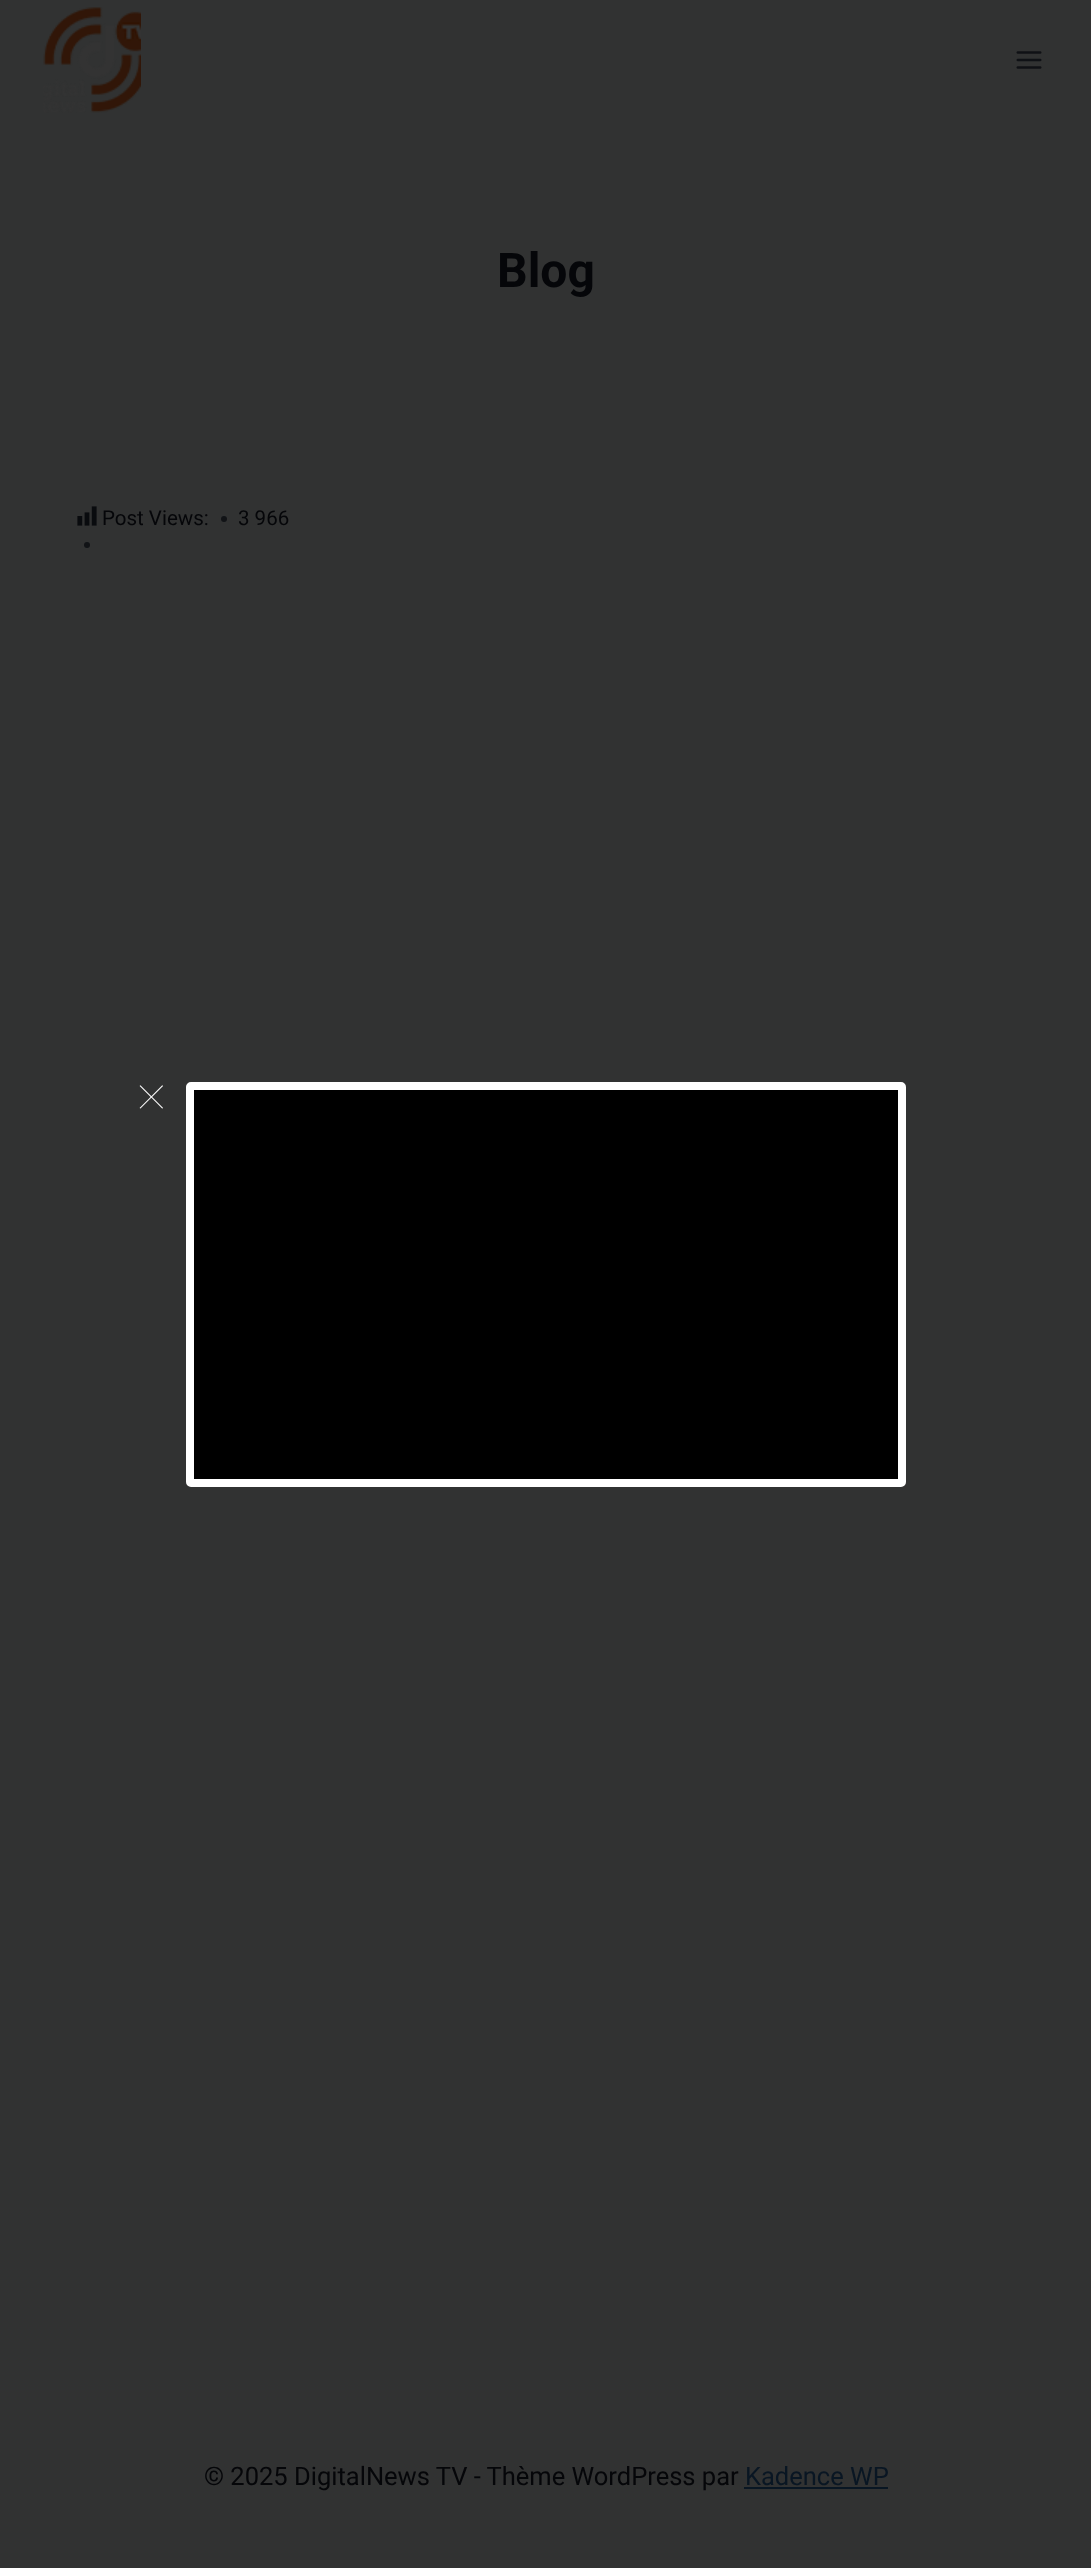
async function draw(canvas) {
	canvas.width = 1091;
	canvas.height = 2568;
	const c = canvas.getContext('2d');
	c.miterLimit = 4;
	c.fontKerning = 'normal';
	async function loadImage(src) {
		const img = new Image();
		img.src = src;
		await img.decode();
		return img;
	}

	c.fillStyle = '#313232';
	c.fillRect(0, 0, 1091, 2568);
	c.drawImage(await loadImage('img1.png'), 43, 7, 98, 106);
	c.drawImage(await loadImage('img2.png'), 1016, 51, 26, 18);
	c.font = 'bold 48px Roboto';
	c.fillStyle = '#050609';
	c.fillText('Blog', 497, 287);
	c.drawImage(await loadImage('img3.png'), 77, 506, 20, 20);
	c.fillStyle = '#111316';
	c.beginPath();
	c.arc(87, 545, 3, 0, 2 * Math.PI);
	c.fill();
	c.font = '20.5px Roboto';
	c.fillStyle = '#050609';
	c.fillText('Post Views:', 102, 525);
	c.fillStyle = '#111316';
	c.beginPath();
	c.arc(224, 519, 3, 0, 2 * Math.PI);
	c.fill();
	c.fillStyle = '#050609';
	c.fillText('3 966', 238, 525);
	c.font = '25.5px Roboto';
	c.fillText('© 2025 DigitalNews TV - Thème WordPress par', 204, 2485);
	c.fillStyle = '#091623';
	c.fillText('Kadence WP', 745, 2485);
	c.fillRect(744, 2487, 144, 2);
	c.drawImage(await loadImage('img4.png'), 139, 1085, 24, 24);
	c.fillStyle = '#000';
	c.beginPath();
	c.roundRect(190, 1086, 712, 397, 1);
	c.fill();
	c.strokeStyle = '#fff';
	c.lineWidth = 8;
	c.stroke();
}

draw(document.querySelector('canvas'));
